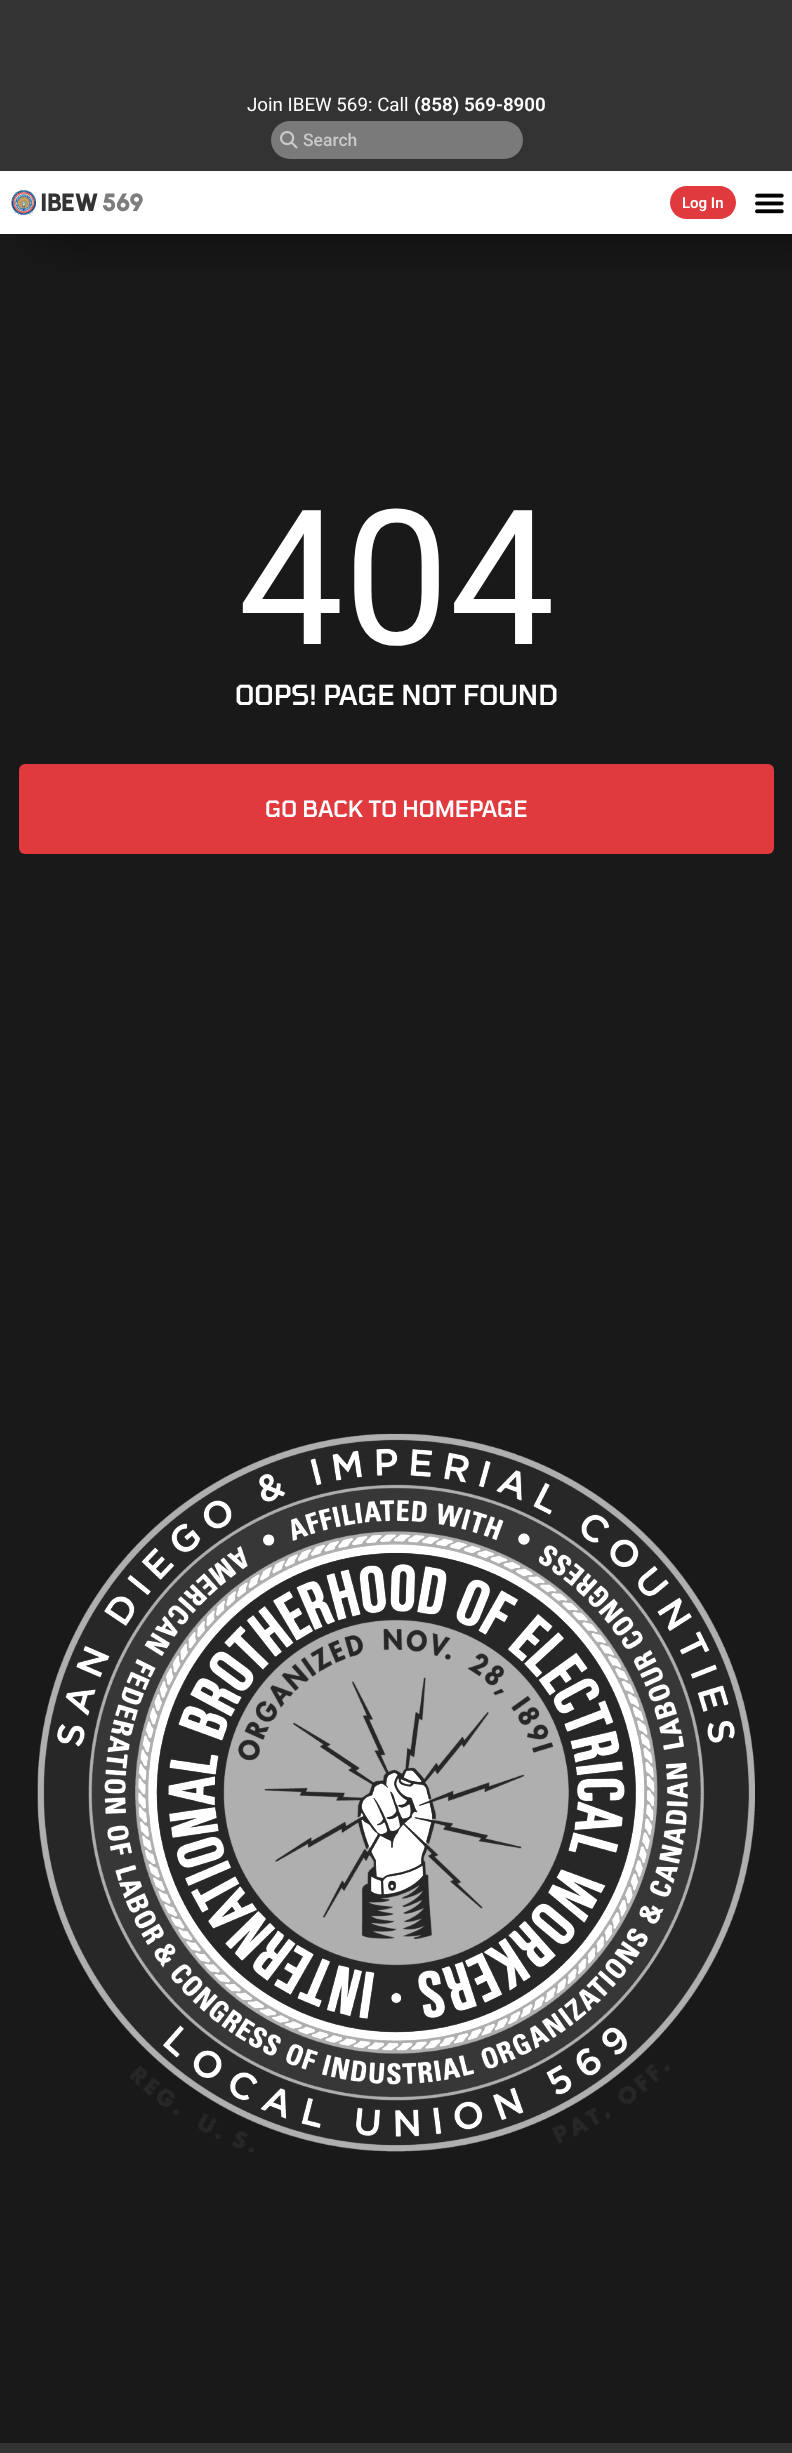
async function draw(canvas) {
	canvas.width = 792;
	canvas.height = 2453;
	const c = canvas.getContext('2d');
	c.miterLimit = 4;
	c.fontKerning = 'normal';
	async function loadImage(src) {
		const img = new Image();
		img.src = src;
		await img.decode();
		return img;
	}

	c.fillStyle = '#191919';
	c.fillRect(0, 0, 792, 2453);
	c.fillStyle = '#0000008a';
	c.filter = 'blur(25px)';
	c.beginPath();
	c.rect(41, 171, 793, 63);
	c.fill();
	c.filter = 'none';
	c.fillStyle = '#333';
	c.fillRect(0, 0, 792, 171);
	c.font = '18.75px Roboto';
	c.fillStyle = '#fff';
	c.fillText('Join IBEW 569: Call', 247, 111);
	c.font = '600 18.75px Roboto';
	c.fillText('(858) 569-8900', 414, 111);
	c.fillStyle = '#7a7a7a';
	c.beginPath();
	c.roundRect(271, 121, 252, 38, 19);
	c.fill();
	c.drawImage(await loadImage('img1.png'), 280, 131, 18, 18);
	c.font = '500 17.5px Roboto';
	c.fillStyle = '#cacaca';
	c.fillText('Search', 303, 146);
	c.fillStyle = '#fff';
	c.fillRect(0, 171, 792, 63);
	c.drawImage(await loadImage('img2.png'), 11, 190, 25, 25);
	c.letterSpacing = '-0.5px';
	c.font = '900 25px Urbanist';
	c.fillStyle = '#333';
	c.fillText('IBEW', 40, 211);
	c.fillStyle = '#7d7d7d';
	c.fillText('569', 102, 211);
	c.fillStyle = '#e0393e';
	c.beginPath();
	c.roundRect(670, 186, 66, 33, 16.5);
	c.fill();
	c.letterSpacing = '0px';
	c.font = '600 15px Roboto';
	c.fillStyle = '#fff';
	c.fillText('Log In', 682, 208);
	c.drawImage(await loadImage('img3.png'), 755, 193, 29, 21);
	c.font = '188px Roboto';
	c.fillText('404', 238, 644);
	c.font = '500 27.5px Tomorrow';
	c.fillText('OOPS! PAGE NOT FOUND', 235, 705);
	c.fillStyle = '#e0393e';
	c.beginPath();
	c.roundRect(19, 764, 755, 90, 6);
	c.fill();
	c.font = '500 22.5px Tomorrow';
	c.fillStyle = '#fff';
	c.fillText('GO BACK TO HOMEPAGE', 265, 817);
	c.drawImage(await loadImage('img4.png'), 37, 1433, 718, 719);
	c.fillStyle = '#333';
	c.fillRect(0, 2443, 792, 10);
}

draw(document.querySelector('canvas'));
